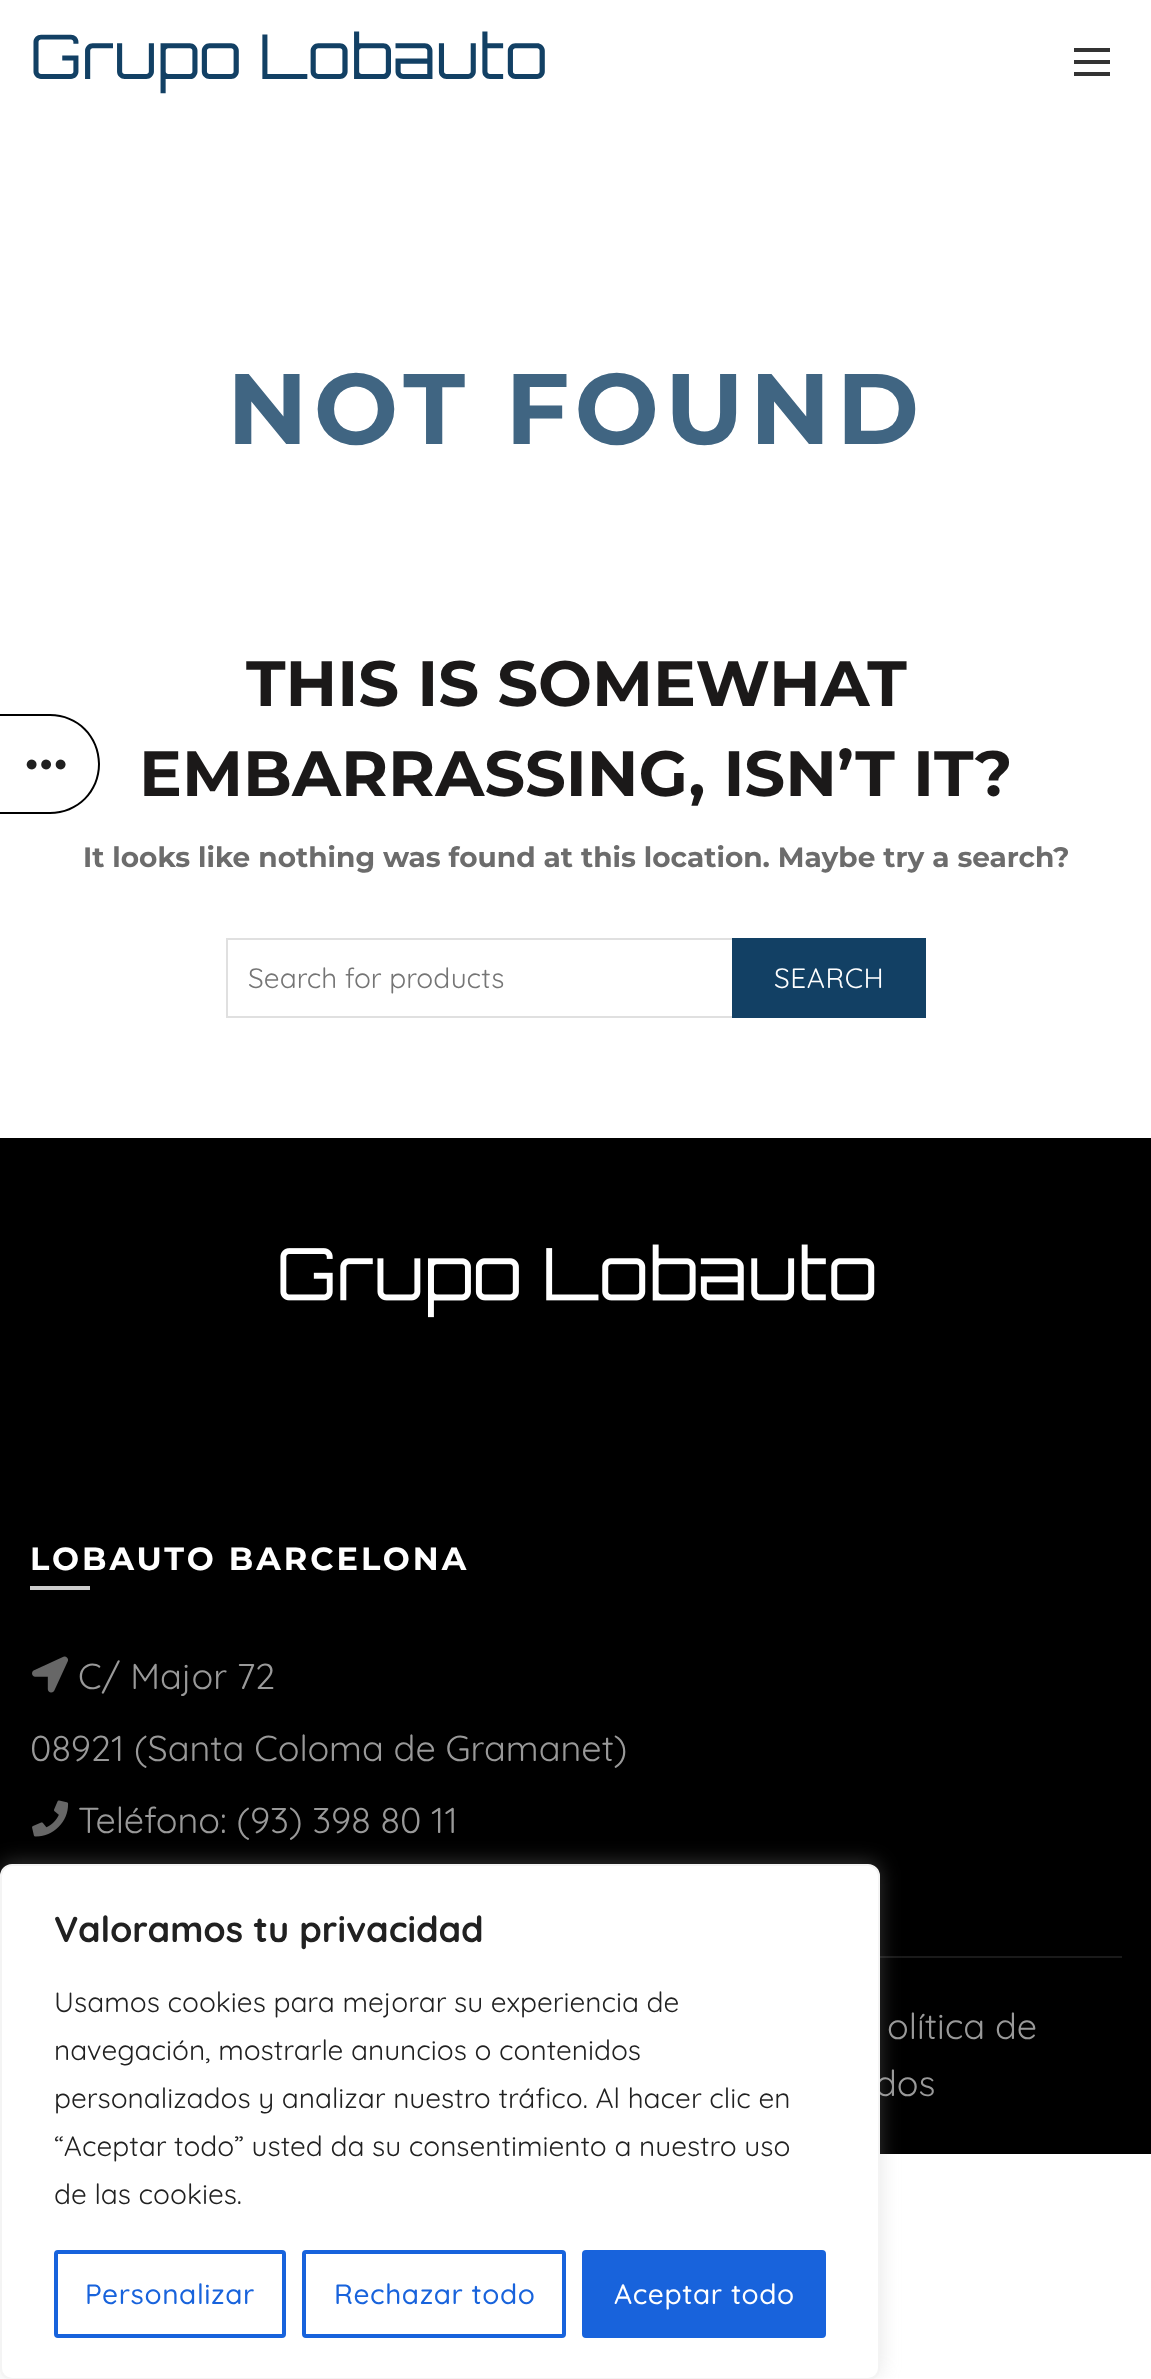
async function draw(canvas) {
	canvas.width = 1151;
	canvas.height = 2379;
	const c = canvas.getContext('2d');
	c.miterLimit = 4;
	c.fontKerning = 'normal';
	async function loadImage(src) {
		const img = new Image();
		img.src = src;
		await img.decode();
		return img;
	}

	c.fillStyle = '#fff';
	c.fillRect(0, 0, 1151, 2379);
	c.drawImage(await loadImage('img1.png'), 33, 31, 512, 63);
	for (const [x, y, w, h, color] of [
		[1074, 60, 36, 4, '#333'],
		[1074, 48, 36, 4, '#333'],
		[1074, 72, 36, 4, '#333'],
	]) {
		c.fillStyle = color;
		c.fillRect(x, y, w, h);
	}
	c.letterSpacing = '6px';
	c.font = 'bold 100px Montserrat';
	c.fillStyle = '#406582';
	c.fillText('NOT FOUND', 227, 444);
	c.letterSpacing = '0px';
	c.font = 'bold 64px Montserrat';
	c.fillStyle = '#1b1919';
	c.fillText('THIS IS SOMEWHAT', 246, 706);
	c.fillText('EMBARRASSING, ISN’T IT?', 139, 796);
	c.font = 'bold 28px Montserrat';
	c.fillStyle = '#6c6c6c';
	c.fillText('It looks like nothing was found at this location. Maybe try a search?', 83, 867);
	c.strokeStyle = '#e0e0e0';
	c.lineWidth = 2;
	c.strokeRect(227, 939, 698, 78);
	c.font = '28px Quicksand';
	c.fillStyle = '#757575';
	c.fillText('Search for products', 248, 988);
	c.fillStyle = '#124064';
	c.fillRect(732, 938, 194, 80);
	c.letterSpacing = '0.6px';
	c.fillStyle = '#fff';
	c.fillText('SEARCH', 774, 988);
	c.fillStyle = '#000';
	c.fillRect(0, 1138, 1151, 1016);
	c.drawImage(await loadImage('img2.png'), 280, 1244, 595, 74);
	c.letterSpacing = '3px';
	c.font = 'bold 32px Montserrat';
	c.fillStyle = '#fff';
	c.fillText('LOBAUTO BARCELONA', 30, 1570);
	c.fillStyle = '#ccc';
	c.fillRect(30, 1586, 60, 4);
	c.drawImage(await loadImage('img3.png'), 32, 1656, 36, 37);
	c.letterSpacing = '0px';
	c.font = '36px Quicksand';
	c.fillStyle = '#999';
	c.fillText('C/ Major 72', 78, 1689);
	c.fillText('08921 (Santa Coloma de Gramanet)', 30, 1761);
	c.drawImage(await loadImage('img4.png'), 32, 1800, 37, 37);
	c.fillText('Teléfono: (93) 398 80 11', 78, 1833);
	c.fillStyle = '#1a1a1a';
	c.fillRect(880, 1956, 242, 2);
	c.fillStyle = '#999';
	c.fillText('olítica de', 887, 2039);
	c.fillText('dos', 875, 2096);
	c.fillStyle = '#000';
	c.beginPath();
	c.moveTo(0, 714);
	c.lineTo(50, 714);
	c.bezierCurveTo(78, 714, 100, 736, 100, 764);
	c.bezierCurveTo(100, 792, 78, 814, 50, 814);
	c.lineTo(0, 814);
	c.closePath();
	c.moveTo(0, 716);
	c.lineTo(50, 716);
	c.bezierCurveTo(77, 716, 98, 737, 98, 764);
	c.bezierCurveTo(98, 791, 77, 812, 50, 812);
	c.lineTo(0, 812);
	c.closePath();
	c.fill('evenodd');
	c.drawImage(await loadImage('img5.png'), 26, 759, 40, 11);
	c.fillStyle = '#acabab4d';
	c.filter = 'blur(10px)';
	c.beginPath();
	c.roundRect(0, 1862, 880, 516, 12);
	c.fill();
	c.filter = 'none';
	c.fillStyle = '#fff';
	c.beginPath();
	c.roundRect(1, 1865, 878, 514, 11);
	c.fill();
	c.strokeStyle = '#f4f4f4';
	c.stroke();
	c.font = 'bold 36px Quicksand';
	c.fillStyle = '#212121';
	c.fillText('Valoramos tu privacidad', 54, 1942);
	c.font = '28px Quicksand';
	for (const [text, x, y] of [
		['Usamos cookies para mejorar su experiencia de', 54, 2012],
		['navegación, mostrarle anuncios o contenidos', 54, 2060],
		['personalizados y analizar nuestro tráfico. Al hacer clic en', 54, 2108],
		['“Aceptar todo” usted da su consentimiento a nuestro uso', 54, 2156],
		['de las cookies.', 54, 2204],
	]) {
		c.fillText(text, x, y);
	}
	c.beginPath();
	c.roundRect(56, 2252, 228, 84, 2);
	c.strokeStyle = '#1863dc';
	c.lineWidth = 4;
	c.stroke();
	c.letterSpacing = '0.6px';
	c.font = '500 28px Quicksand';
	c.fillStyle = '#1863dc';
	c.fillText('Personalizar', 85, 2304);
	c.beginPath();
	c.roundRect(304, 2252, 260, 84, 2);
	c.stroke();
	c.fillText('Rechazar todo', 334, 2304);
	c.beginPath();
	c.roundRect(584, 2252, 240, 84, 2);
	c.fill();
	c.stroke();
	c.fillStyle = '#fff';
	c.fillText('Aceptar todo', 614, 2304);
}

draw(document.querySelector('canvas'));
